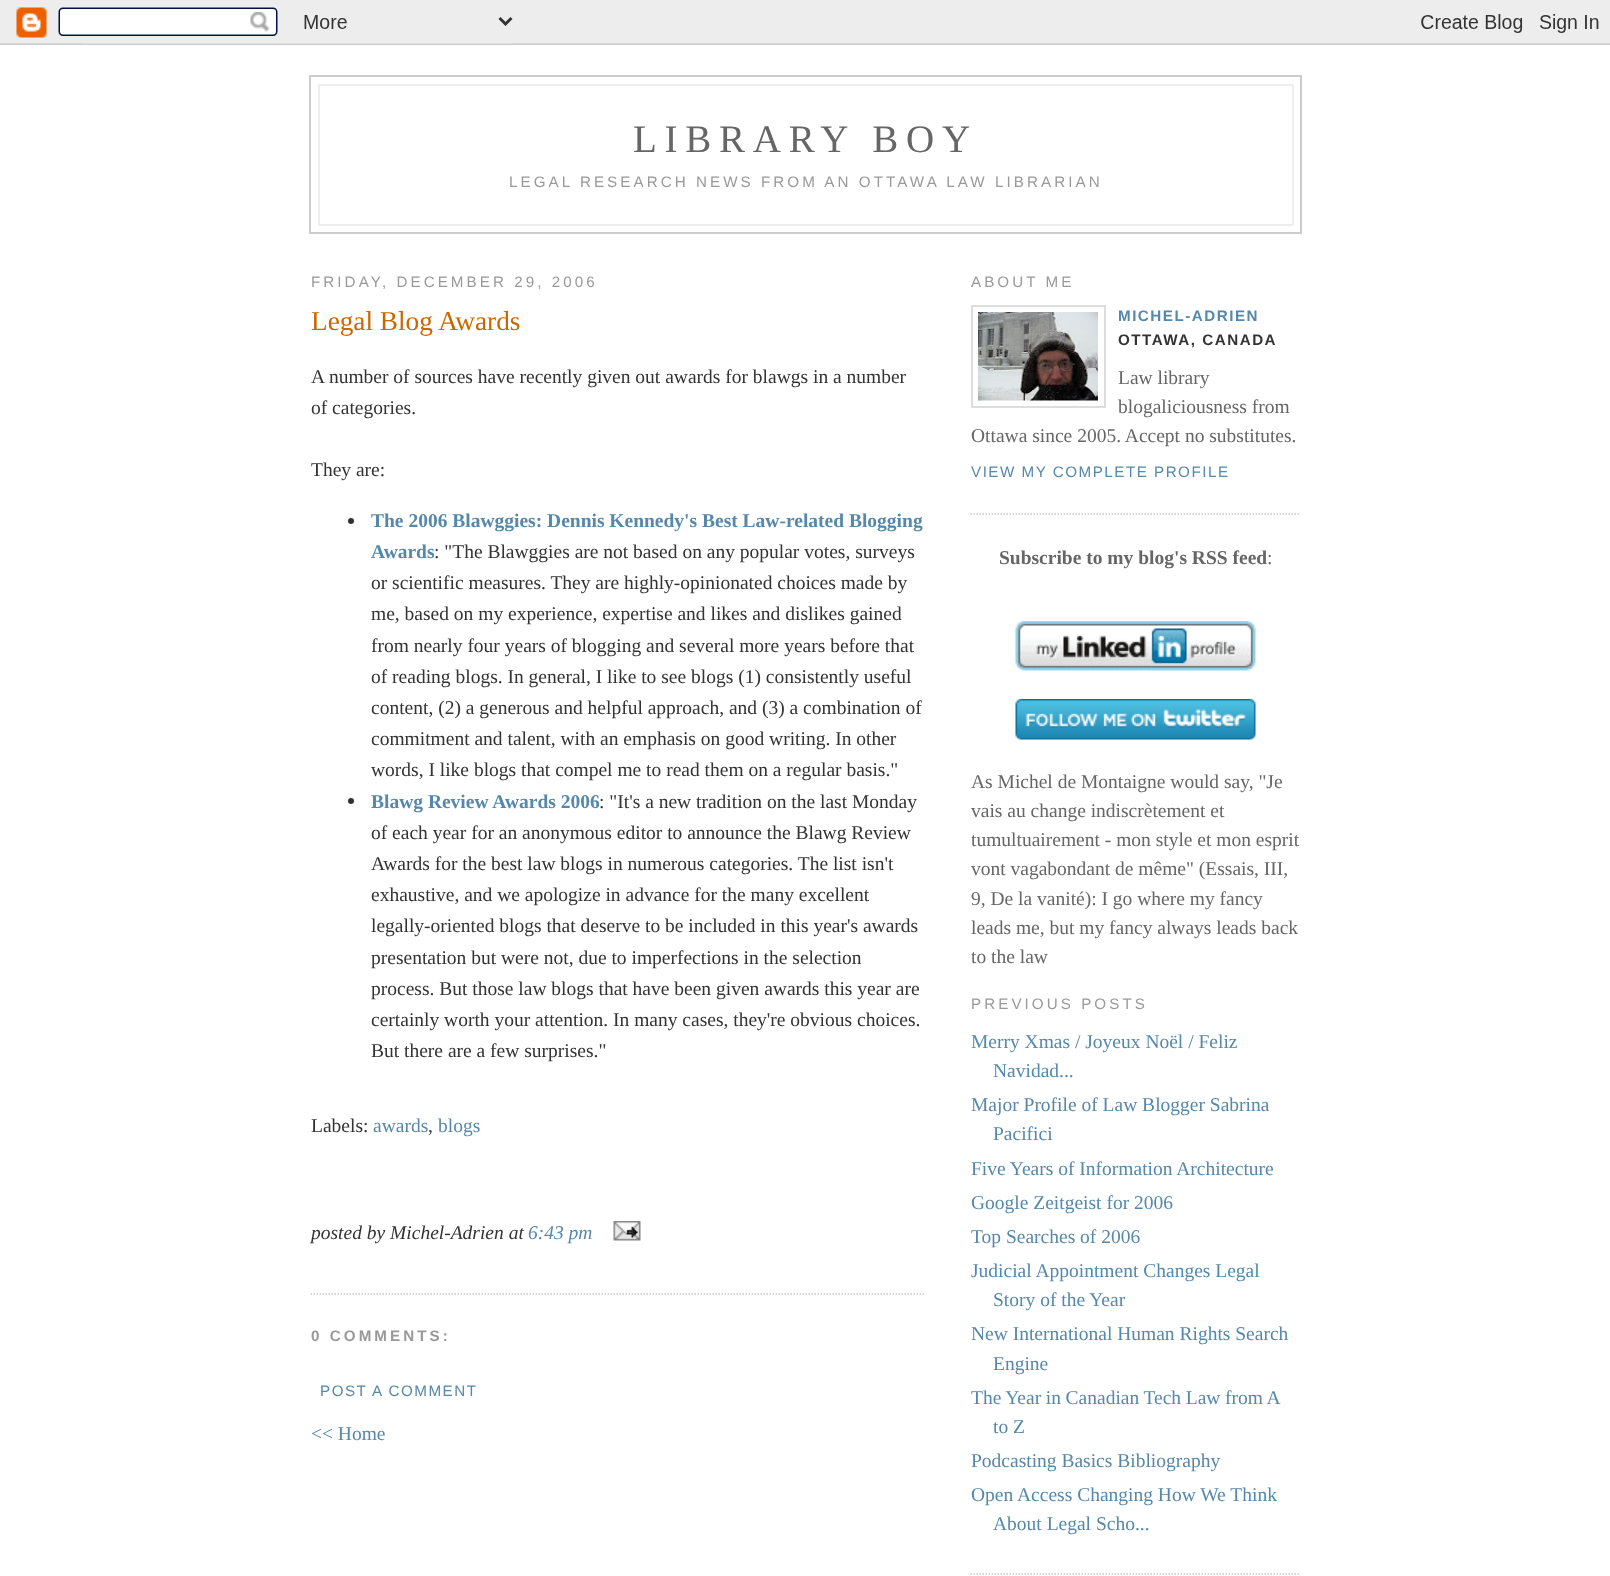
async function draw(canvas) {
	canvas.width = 1610;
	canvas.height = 1576;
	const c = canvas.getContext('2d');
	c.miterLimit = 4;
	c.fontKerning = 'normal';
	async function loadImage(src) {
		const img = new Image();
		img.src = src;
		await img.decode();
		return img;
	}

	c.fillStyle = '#fff';
	c.fillRect(0, 0, 1610, 1576);
	c.drawImage(await loadImage('img1.png'), 0, 0, 1610, 45);
	c.strokeStyle = '#ccc';
	c.lineWidth = 2;
	c.strokeRect(310, 76, 991, 157);
	for (const [x, y, w, h, color] of [
		[318, 84, 975, 2, '#eee'],
		[1292, 84, 2, 141, '#eee'],
		[318, 84, 2, 89, '#eee'],
	]) {
		c.fillStyle = color;
		c.fillRect(x, y, w, h);
	}
	c.letterSpacing = '7.75px';
	c.font = '39px Liberation Serif';
	c.fillStyle = '#666';
	c.fillText('LIBRARY BOY', 633, 152);
	c.fillStyle = '#eee';
	c.fillRect(318, 224, 975, 2);
	c.fillRect(318, 173, 2, 52);
	c.letterSpacing = '3.05px';
	c.font = '15.2px Liberation Sans';
	c.fillStyle = '#999';
	c.fillText('LEGAL RESEARCH NEWS FROM AN OTTAWA LAW LIBRARIAN', 509, 187);
	c.fillText('FRIDAY, DECEMBER 29, 2006', 311, 287);
	c.beginPath();
	c.moveTo(310.5, 1294);
	c.lineTo(925.5, 1294);
	c.lineWidth = 1.5;
	c.setLineDash([1.5, 1.5]);
	c.stroke();
	c.letterSpacing = '0px';
	c.font = '27.25px Liberation Serif';
	c.fillStyle = '#c60';
	c.fillText('Legal Blog Awards', 311, 330);
	c.font = '19.5px Liberation Serif';
	c.fillStyle = '#333';
	for (const [text, x, y] of [
		['A number of sources have recently given out awards for blawgs in a number', 311, 383],
		['of categories.', 311, 414],
		['They are:', 311, 476],
	]) {
		c.fillText(text, x, y);
	}
	c.beginPath();
	c.arc(351, 521, 3, 0, 2 * Math.PI);
	c.fill();
	c.font = 'bold 19.5px Liberation Serif';
	c.fillStyle = '#58a';
	c.fillText('The 2006 Blawggies: Dennis Kennedy\'s Best Law-related Blogging', 371, 527);
	c.fillText('Awards', 371, 558);
	c.font = '19.5px Liberation Serif';
	c.fillStyle = '#333';
	for (const [text, x, y] of [
		[': "The Blawggies are not based on any popular votes, surveys', 434, 558],
		['or scientific measures. They are highly-opinionated choices made by', 371, 589],
		['me, based on my experience, expertise and likes and dislikes gained', 371, 620],
		['from nearly four years of blogging and several more years before that', 371, 652],
		['of reading blogs. In general, I like to see blogs (1) consistently useful', 371, 683],
		['content, (2) a generous and helpful approach, and (3) a combination of', 371, 714],
		['commitment and talent, with an emphasis on good writing. In other', 371, 745],
		['words, I like blogs that compel me to read them on a regular basis."', 371, 776],
	]) {
		c.fillText(text, x, y);
	}
	c.beginPath();
	c.arc(351, 801, 3, 0, 2 * Math.PI);
	c.fill();
	c.font = 'bold 19.5px Liberation Serif';
	c.fillStyle = '#58a';
	c.fillText('Blawg Review Awards 2006', 371, 808);
	c.font = '19.5px Liberation Serif';
	c.fillStyle = '#333';
	for (const [text, x, y] of [
		[': "It\'s a new tradition on the last Monday', 599, 808],
		['of each year for an anonymous editor to announce the Blawg Review', 371, 839],
		['Awards for the best law blogs in numerous categories. The list isn\'t', 371, 870],
		['exhaustive, and we apologize in advance for the many excellent', 371, 901],
		['legally-oriented blogs that deserve to be included in this year\'s awards', 371, 932],
		['presentation but were not, due to imperfections in the selection', 371, 964],
		['process. But those law blogs that have been given awards this year are', 371, 995],
		['certainly worth your attention. In many cases, they\'re obvious choices.', 371, 1026],
		['But there are a few surprises."', 371, 1057],
		['Labels:', 311, 1132],
	]) {
		c.fillText(text, x, y);
	}
	c.fillStyle = '#58a';
	c.fillText('awards', 373, 1132);
	c.fillStyle = '#333';
	c.fillText(',', 428, 1132);
	c.fillStyle = '#58a';
	c.fillText('blogs', 438, 1132);
	c.font = 'italic 19.5px Liberation Serif';
	c.fillStyle = '#333';
	c.fillText('posted by Michel-Adrien at', 311, 1239);
	c.fillStyle = '#58a';
	c.fillText('6:43 pm', 528, 1239);
	c.drawImage(await loadImage('img2.png'), 613, 1221, 28, 20);
	c.letterSpacing = '3.05px';
	c.font = 'bold 15.2px Liberation Sans';
	c.fillStyle = '#999';
	c.fillText('0 COMMENTS:', 311, 1341);
	c.letterSpacing = '1.5px';
	c.font = '15.2px Liberation Sans';
	c.fillStyle = '#58a';
	c.fillText('POST A COMMENT', 320, 1396);
	c.letterSpacing = '0px';
	c.font = '19.5px Liberation Serif';
	c.fillText('<< Home', 311, 1440);
	c.beginPath();
	c.moveTo(970.5, 514);
	c.lineTo(1300.5, 514);
	c.stroke();
	c.letterSpacing = '3.05px';
	c.font = '15.2px Liberation Sans';
	c.fillStyle = '#999';
	c.fillText('ABOUT ME', 971, 287);
	c.strokeStyle = '#ddd';
	c.lineWidth = 2;
	c.setLineDash([]);
	c.strokeRect(972, 306, 133, 101);
	c.drawImage(await loadImage('img3.png'), 978, 312, 120, 89);
	c.letterSpacing = '1.5px';
	c.font = 'bold 15.2px Liberation Sans';
	c.fillStyle = '#58a';
	c.fillText('MICHEL-ADRIEN', 1118, 321);
	c.fillStyle = '#333';
	c.fillText('OTTAWA, CANADA', 1118, 345);
	c.letterSpacing = '0px';
	c.font = '19.5px Liberation Serif';
	c.fillStyle = '#666';
	for (const [text, x, y] of [
		['Law library', 1118, 384],
		['blogaliciousness from', 1118, 413],
		['Ottawa since 2005. Accept no substitutes.', 971, 442],
	]) {
		c.fillText(text, x, y);
	}
	c.letterSpacing = '1.5px';
	c.font = '15.2px Liberation Sans';
	c.fillStyle = '#58a';
	c.fillText('VIEW MY COMPLETE PROFILE', 971, 477);
	c.letterSpacing = '0px';
	c.font = 'bold 19.5px Liberation Serif';
	c.fillStyle = '#666';
	c.fillText('Subscribe to my blog\'s RSS feed', 999, 564);
	c.font = '19.5px Liberation Serif';
	c.fillText(':', 1267, 564);
	c.drawImage(await loadImage('img4.png'), 1015, 621, 241, 50);
	c.drawImage(await loadImage('img5.png'), 1015, 699, 241, 41);
	for (const [text, x, y] of [
		['As Michel de Montaigne would say, "Je', 971, 788],
		['vais au change indiscrètement et', 971, 817],
		['tumultuairement - mon style et mon esprit', 971, 846],
		['vont vagabondant de même" (Essais, III,', 971, 875],
		['9, De la vanité): I go where my fancy', 971, 905],
		['leads me, but my fancy always leads back', 971, 934],
		['to the law', 971, 963],
	]) {
		c.fillText(text, x, y);
	}
	c.letterSpacing = '3.05px';
	c.font = '15.2px Liberation Sans';
	c.fillStyle = '#999';
	c.fillText('PREVIOUS POSTS', 971, 1009);
	c.beginPath();
	c.moveTo(970.5, 1574);
	c.lineTo(1300.5, 1574);
	c.strokeStyle = '#ccc';
	c.lineWidth = 1.5;
	c.setLineDash([1.5, 1.5]);
	c.stroke();
	c.letterSpacing = '0px';
	c.font = '19.5px Liberation Serif';
	c.fillStyle = '#58a';
	for (const [text, x, y] of [
		['Merry Xmas / Joyeux Noël / Feliz', 971, 1048],
		['Navidad...', 993, 1077],
		['Major Profile of Law Blogger Sabrina', 971, 1111],
		['Pacifici', 993, 1140],
		['Five Years of Information Architecture', 971, 1175],
		['Google Zeitgeist for 2006', 971, 1209],
		['Top Searches of 2006', 971, 1243],
		['Judicial Appointment Changes Legal', 971, 1277],
		['Story of the Year', 993, 1306],
		['New International Human Rights Search', 971, 1340],
		['Engine', 993, 1370],
	]) {
		c.fillText(text, x, y);
	}
	c.wordSpacing = '-0.25px';
	c.fillText('The Year in Canadian Tech Law from A', 971, 1404);
	c.wordSpacing = '0px';
	for (const [text, x, y] of [
		['to Z', 993, 1433],
		['Podcasting Basics Bibliography', 971, 1467],
		['Open Access Changing How We Think', 971, 1501],
		['About Legal Scho...', 993, 1530],
	]) {
		c.fillText(text, x, y);
	}
}

draw(document.querySelector('canvas'));
